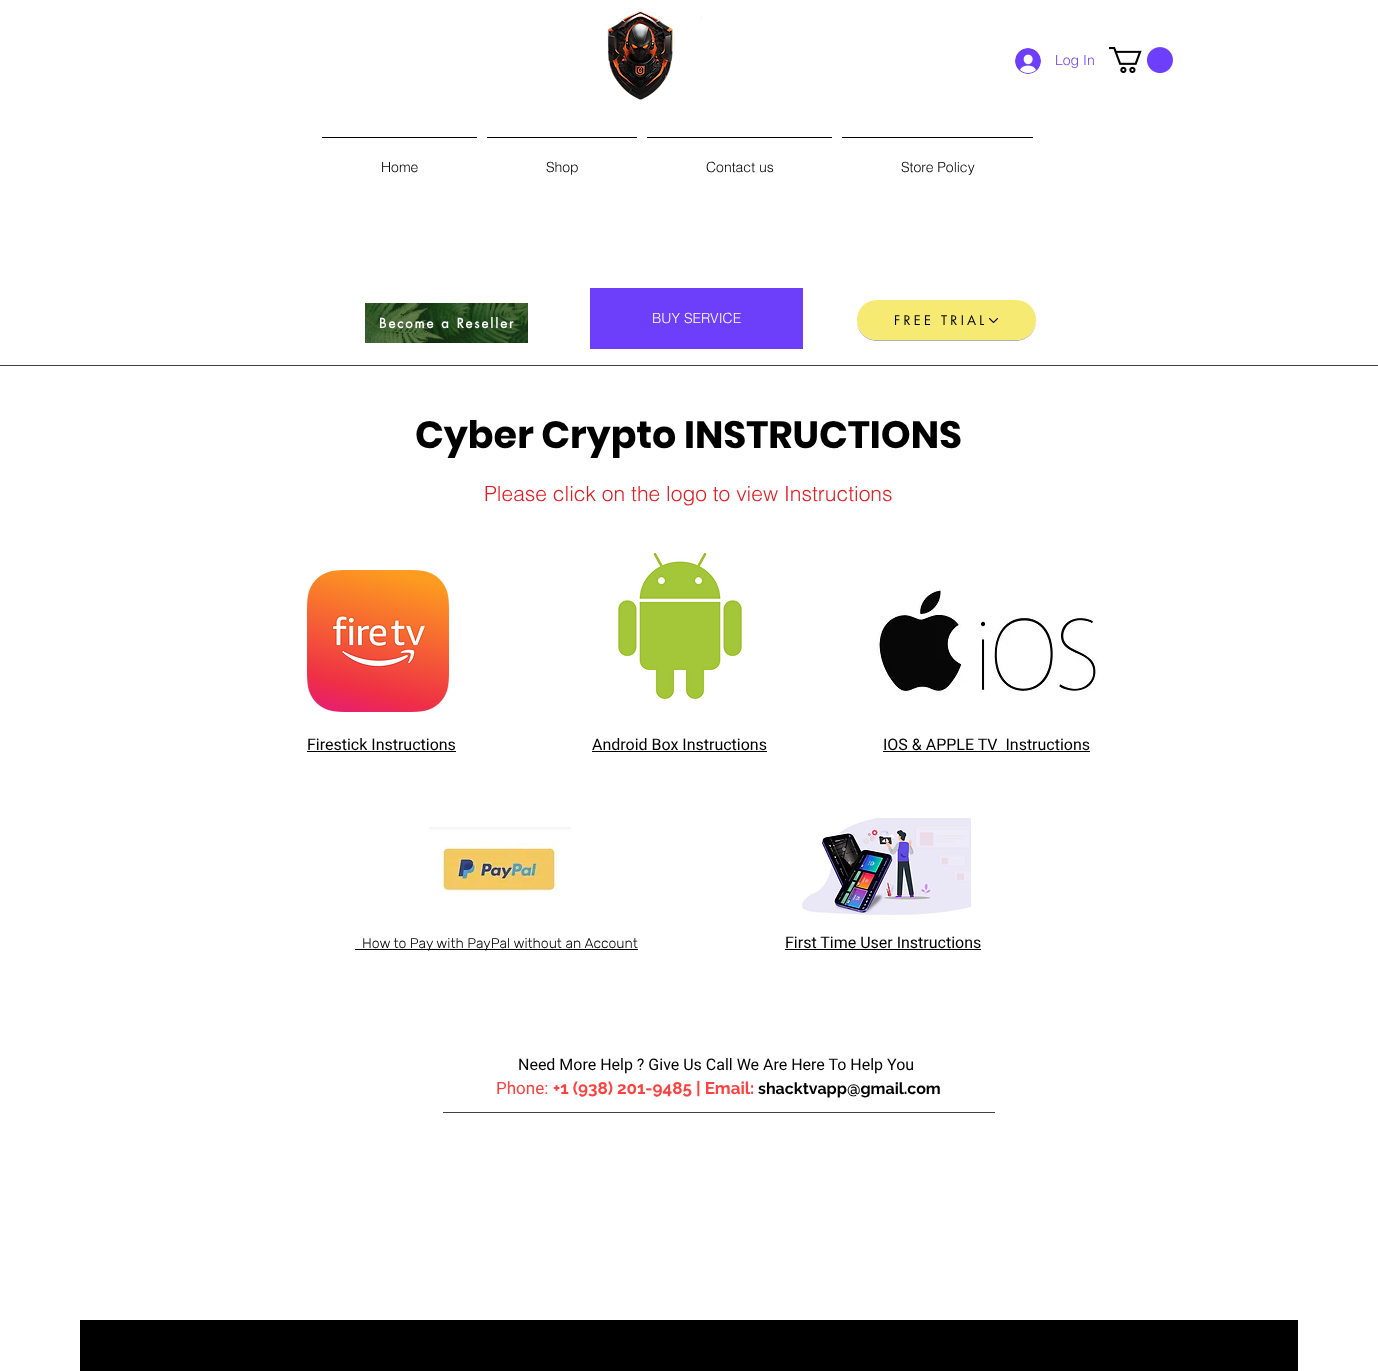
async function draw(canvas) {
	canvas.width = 1378;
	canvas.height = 1371;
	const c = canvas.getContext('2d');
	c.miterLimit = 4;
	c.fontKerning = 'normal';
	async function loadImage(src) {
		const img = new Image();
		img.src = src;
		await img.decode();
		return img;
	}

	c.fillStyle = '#fff';
	c.fillRect(0, 0, 1378, 1371);
	c.drawImage(await loadImage('img1.png'), 607, 10, 128, 90);
	c.drawImage(await loadImage('img2.png'), 1015, 48, 26, 26);
	c.font = '300 14px helvetica';
	c.fillStyle = '#6e3ffb';
	c.fillText('Log In', 1055, 65);
	c.drawImage(await loadImage('img3.png'), 1109, 47, 64, 27);
	c.fillStyle = '#000';
	c.fillRect(322, 137, 155, 1);
	c.fillText('Home', 381, 172);
	c.fillRect(487, 137, 150, 1);
	c.fillText('Shop', 546, 172);
	c.fillRect(647, 137, 185, 1);
	c.fillText('Contact us', 706, 172);
	c.fillRect(842, 137, 191, 1);
	c.fillText('Store Policy', 901, 172);
	c.drawImage(await loadImage('img4.png'), 365, 303, 163, 40);
	c.letterSpacing = '2px';
	c.font = 'bold 13px futura';
	c.fillStyle = '#fff';
	c.fillText('Become a Reseller', 379, 328);
	c.fillStyle = '#6e3ffb';
	c.fillRect(590, 288, 213, 61);
	c.letterSpacing = '0px';
	c.font = '300 14px helvetica';
	c.fillStyle = '#fff';
	c.fillText('BUY SERVICE', 652, 323);
	c.fillStyle = '#afb3b6';
	c.beginPath();
	c.moveTo(857, 320);
	c.lineTo(857, 321);
	c.bezierCurveTo(857, 332, 866, 341, 877, 341);
	c.lineTo(1016, 341);
	c.bezierCurveTo(1027, 341, 1036, 332, 1036, 321);
	c.lineTo(1036, 320);
	c.bezierCurveTo(1036, 331, 1027, 340, 1016, 340);
	c.lineTo(877, 340);
	c.bezierCurveTo(866, 340, 857, 331, 857, 320);
	c.closePath();
	c.fill();
	c.fillStyle = '#f7ea73';
	c.beginPath();
	c.roundRect(857, 300, 179, 40, 20);
	c.fill();
	c.letterSpacing = '3.25px';
	c.font = '13px futura';
	c.fillStyle = '#000';
	c.fillText('FREE TRIAL', 894, 325);
	c.drawImage(await loadImage('img5.png'), 989, 318, 9, 5);
	c.fillStyle = '#424242';
	c.fillRect(0, 365, 1378, 1);
	c.letterSpacing = '0px';
	c.font = 'bold 38px Poppins';
	c.fillStyle = '#000';
	c.fillText('Cyber Crypto INSTRUCTIONS', 415, 448);
	c.font = '300 21px helvetica';
	c.fillStyle = '#e21c21';
	c.fillText('Please click on the logo to view Instructions', 484, 501);
	c.drawImage(await loadImage('img6.png'), 307, 570, 142, 142);
	c.drawImage(await loadImage('img7.png'), 618, 552, 124, 148);
	c.drawImage(await loadImage('img8.png'), 877, 588, 220, 104);
	c.font = '16px Roboto';
	c.fillStyle = '#000';
	c.fillText('Firestick Instructions', 307, 750);
	c.fillRect(307, 751, 149, 1);
	c.fillText('Android Box Instructions', 592, 750);
	c.fillRect(592, 751, 175, 1);
	c.fillText('IOS & APPLE TV  Instructions', 883, 750);
	c.fillRect(883, 751, 207, 1);
	c.drawImage(await loadImage('img9.png'), 429, 827, 142, 65);
	c.drawImage(await loadImage('img10.png'), 802, 818, 169, 97);
	c.fillRect(355, 949, 283, 1);
	c.font = '300 14px Rubik';
	c.fillText('How to Pay with PayPal without an Account', 362, 948);
	c.font = '16px Roboto';
	c.fillText('First Time User Instructions', 785, 948);
	c.fillRect(785, 949, 196, 1);
	c.fillText('Need More Help ? Give Us Call We Are Here To Help You', 518, 1070);
	c.font = '17px Roboto';
	c.fillStyle = '#ff4040';
	c.fillText('Phone:', 496, 1094);
	c.font = 'bold 17px Raleway';
	c.fillText('+1 (938) 201-9485 | Email:', 553, 1094);
	c.font = 'bold 16px Raleway';
	c.fillStyle = '#000';
	c.fillText('shacktvapp@gmail.com', 758, 1094);
	c.fillStyle = '#424242';
	c.fillRect(443, 1112, 552, 1);
	c.fillStyle = '#000';
	c.fillRect(80, 1320, 1218, 51);
}

draw(document.querySelector('canvas'));
